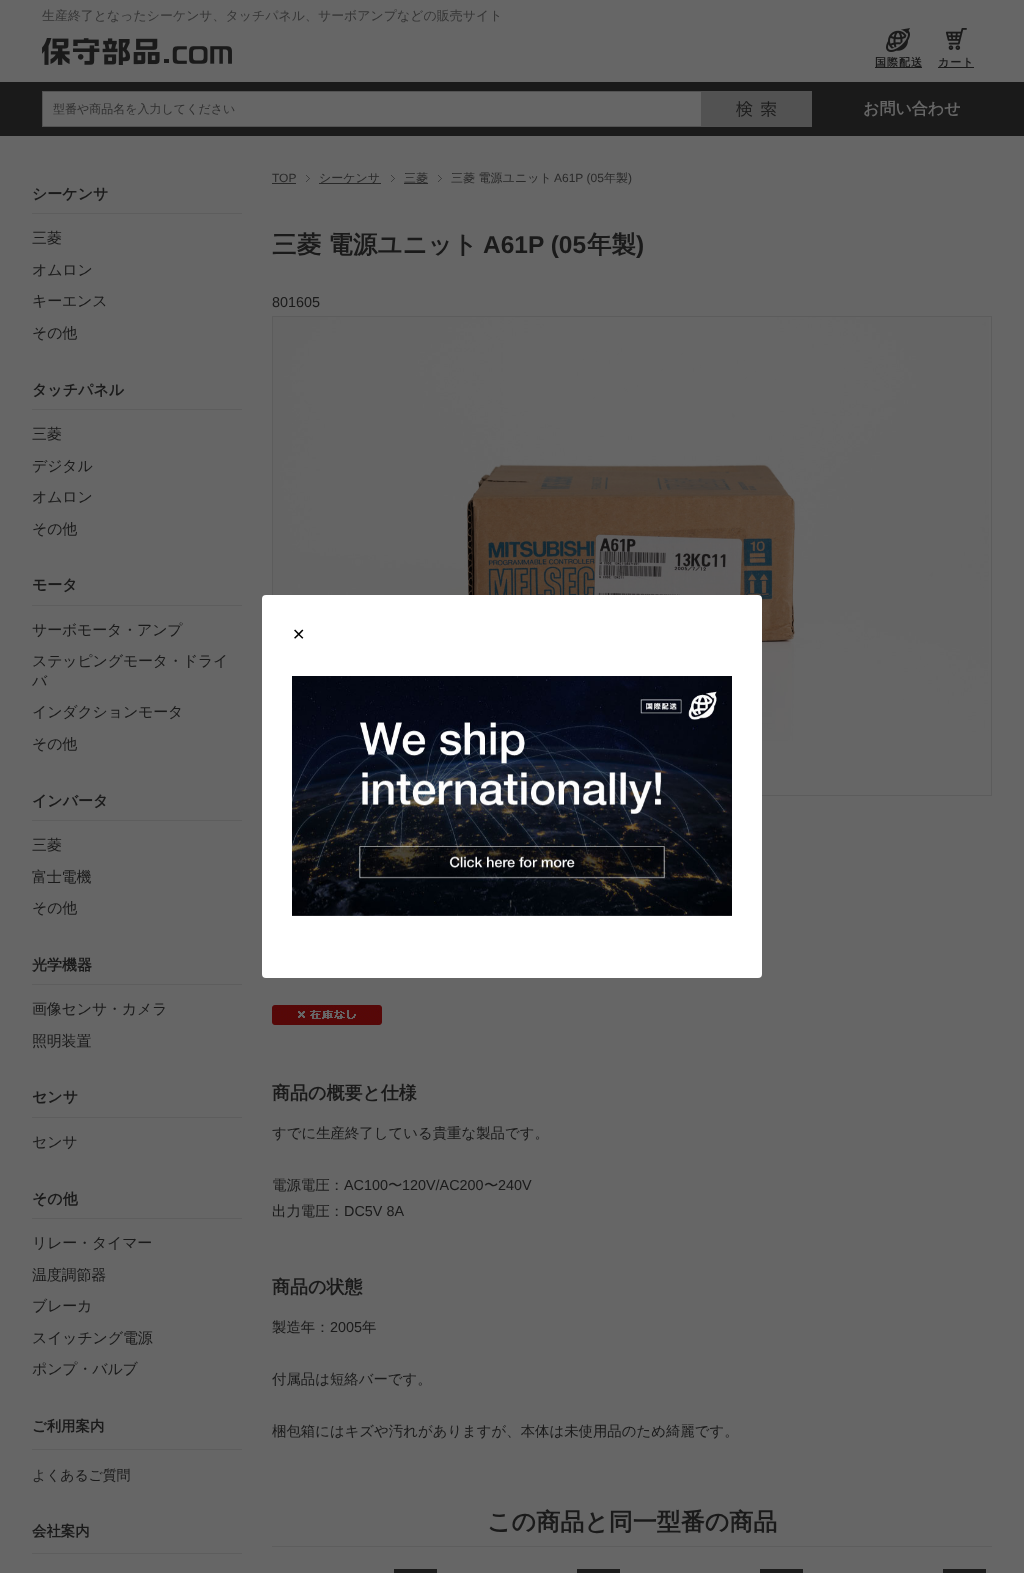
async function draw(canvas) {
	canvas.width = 1024;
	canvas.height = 1573;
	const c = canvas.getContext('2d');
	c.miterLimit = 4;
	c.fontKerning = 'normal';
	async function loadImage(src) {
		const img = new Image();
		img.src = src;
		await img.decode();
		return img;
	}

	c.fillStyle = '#666';
	c.fillRect(0, 0, 1024, 1573);
	c.font = '500 12.95px WenQuanYi Zen Hei';
	c.fillStyle = '#353535';
	c.fillText('生産終了となったシーケンサ、タッチパネル、サーボアンプなどの販売サイト', 42, 20);
	c.drawImage(await loadImage('img1.png'), 42, 38, 190, 27);
	c.drawImage(await loadImage('img2.png'), 886, 28, 24, 24);
	c.fillStyle = '#1a1a1a';
	c.fillRect(875, 67, 47, 1);
	c.letterSpacing = '1px';
	c.font = 'bold 11px WenQuanYi Zen Hei';
	c.fillText('国際配送', 875, 66);
	c.drawImage(await loadImage('img3.png'), 945, 28, 22, 22);
	c.fillRect(938, 67, 36, 1);
	c.fillText('カート', 938, 66);
	c.fillRect(0, 82, 1024, 54);
	c.fillStyle = '#666';
	c.fillRect(43, 92, 658, 34);
	c.strokeStyle = '#525252';
	c.strokeRect(42.5, 91.5, 769, 35);
	c.letterSpacing = '0px';
	c.font = '500 12px WenQuanYi Zen Hei';
	c.fillStyle = '#2f2f2f';
	c.fillText('型番や商品名を入力してください', 53, 113);
	c.fillStyle = '#525252';
	c.fillRect(701, 92, 110, 34);
	c.drawImage(await loadImage('img4.png'), 736, 101, 40, 16);
	c.font = 'bold 16px WenQuanYi Zen Hei';
	c.fillStyle = '#666';
	c.fillText('お問い合わせ', 863, 114);
	c.fillStyle = '#5d5d5d';
	c.fillRect(32, 213, 210, 1);
	c.font = 'bold 15px WenQuanYi Zen Hei';
	c.fillStyle = '#1a1a1a';
	c.fillText('シーケンサ', 32, 199);
	c.letterSpacing = '-0.2px';
	c.font = '500 15px WenQuanYi Zen Hei';
	for (const [text, x, y] of [
		['三菱', 32, 243],
		['オムロン', 32, 275],
		['キーエンス', 32, 306],
		['その他', 32, 338],
	]) {
		c.fillText(text, x, y);
	}
	c.fillStyle = '#5d5d5d';
	c.fillRect(32, 409, 210, 1);
	c.letterSpacing = '0px';
	c.font = 'bold 15px WenQuanYi Zen Hei';
	c.fillStyle = '#1a1a1a';
	c.fillText('タッチパネル', 32, 395);
	c.letterSpacing = '-0.2px';
	c.font = '500 15px WenQuanYi Zen Hei';
	for (const [text, x, y] of [
		['三菱', 32, 439],
		['デジタル', 32, 471],
		['オムロン', 32, 502],
		['その他', 32, 534],
	]) {
		c.fillText(text, x, y);
	}
	c.fillStyle = '#5d5d5d';
	c.fillRect(32, 605, 210, 1);
	c.letterSpacing = '0px';
	c.font = 'bold 15px WenQuanYi Zen Hei';
	c.fillStyle = '#1a1a1a';
	c.fillText('モータ', 32, 590);
	c.letterSpacing = '-0.2px';
	c.font = '500 15px WenQuanYi Zen Hei';
	for (const [text, x, y] of [
		['サーボモータ・アンプ', 32, 635],
		['ステッピングモータ・ドライ', 32, 666],
		['バ', 32, 686],
		['インダクションモータ', 32, 717],
		['その他', 32, 749],
	]) {
		c.fillText(text, x, y);
	}
	c.fillStyle = '#5d5d5d';
	c.fillRect(32, 820, 210, 1);
	c.letterSpacing = '0px';
	c.font = 'bold 15px WenQuanYi Zen Hei';
	c.fillStyle = '#1a1a1a';
	c.fillText('インバータ', 32, 806);
	c.letterSpacing = '-0.2px';
	c.font = '500 15px WenQuanYi Zen Hei';
	for (const [text, x, y] of [
		['三菱', 32, 850],
		['富士電機', 32, 882],
		['その他', 32, 913],
	]) {
		c.fillText(text, x, y);
	}
	c.fillStyle = '#5d5d5d';
	c.fillRect(32, 984, 210, 1);
	c.letterSpacing = '0px';
	c.font = 'bold 15px WenQuanYi Zen Hei';
	c.fillStyle = '#1a1a1a';
	c.fillText('光学機器', 32, 970);
	c.letterSpacing = '-0.2px';
	c.font = '500 15px WenQuanYi Zen Hei';
	c.fillText('画像センサ・カメラ', 32, 1014);
	c.fillText('照明装置', 32, 1046);
	c.fillStyle = '#5d5d5d';
	c.fillRect(32, 1117, 210, 1);
	c.letterSpacing = '0px';
	c.font = 'bold 15px WenQuanYi Zen Hei';
	c.fillStyle = '#1a1a1a';
	c.fillText('センサ', 32, 1102);
	c.letterSpacing = '-0.2px';
	c.font = '500 15px WenQuanYi Zen Hei';
	c.fillText('センサ', 32, 1147);
	c.fillStyle = '#5d5d5d';
	c.fillRect(32, 1218, 210, 1);
	c.letterSpacing = '0px';
	c.font = 'bold 15px WenQuanYi Zen Hei';
	c.fillStyle = '#1a1a1a';
	c.fillText('その他', 32, 1204);
	c.letterSpacing = '-0.2px';
	c.font = '500 15px WenQuanYi Zen Hei';
	for (const [text, x, y] of [
		['リレー・タイマー', 32, 1248],
		['温度調節器', 32, 1280],
		['ブレーカ', 32, 1311],
		['スイッチング電源', 32, 1343],
		['ポンプ・バルブ', 32, 1374],
	]) {
		c.fillText(text, x, y);
	}
	c.fillStyle = '#5d5d5d';
	c.fillRect(32, 1449, 210, 1);
	c.letterSpacing = '0px';
	c.font = 'bold 14.4px WenQuanYi Zen Hei';
	c.fillStyle = '#1a1a1a';
	c.fillText('ご利用案内', 32, 1431);
	c.letterSpacing = '-0.2px';
	c.font = '500 14px WenQuanYi Zen Hei';
	c.fillText('よくあるご質問', 32, 1480);
	c.fillStyle = '#5d5d5d';
	c.fillRect(32, 1553, 210, 1);
	c.letterSpacing = '0px';
	c.font = 'bold 14.4px WenQuanYi Zen Hei';
	c.fillStyle = '#1a1a1a';
	c.fillText('会社案内', 32, 1536);
	c.font = '12px Liberation Sans';
	c.fillStyle = '#292929';
	c.fillText('TOP', 272, 182);
	c.fillRect(272, 183, 24, 1);
	c.drawImage(await loadImage('img5.png'), 306, 175, 4, 7);
	c.fillRect(319, 183, 62, 1);
	c.font = '500 12px WenQuanYi Zen Hei';
	c.fillText('シーケンサ', 319, 182);
	c.drawImage(await loadImage('img5.png'), 391, 175, 4, 7);
	c.fillRect(404, 183, 24, 1);
	c.fillText('三菱', 404, 182);
	c.drawImage(await loadImage('img5.png'), 438, 175, 4, 7);
	c.fillText('三菱 電源ユニット', 451, 182);
	c.font = '12px Liberation Sans';
	c.fillText('A61P (05', 554, 182);
	c.font = '500 12px WenQuanYi Zen Hei';
	c.fillText('年製', 604, 182);
	c.font = '12px Liberation Sans';
	c.fillText(')', 628, 182);
	c.font = 'bold 24.5px WenQuanYi Zen Hei';
	c.fillStyle = '#1a1a1a';
	c.fillText('三菱 電源ユニット', 272, 253);
	c.font = 'bold 24.5px Liberation Sans';
	c.fillText('A61P (05', 483, 253);
	c.font = 'bold 24.5px WenQuanYi Zen Hei';
	c.fillText('年製', 587, 253);
	c.font = 'bold 24.5px Liberation Sans';
	c.fillText(')', 636, 253);
	c.font = '14.4px Liberation Sans';
	c.fillText('801605', 272, 307);
	c.drawImage(await loadImage('img6.png'), 273, 317, 716, 424);
	c.strokeStyle = '#5c5c5c';
	c.strokeRect(272.5, 316.5, 719, 479);
	c.drawImage(await loadImage('img7.png'), 272, 1005, 110, 20);
	c.font = 'bold 18px WenQuanYi Zen Hei';
	c.fillText('商品の概要と仕様', 272, 1099);
	c.font = '500 14.4px WenQuanYi Zen Hei';
	c.fillText('すでに生産終了している貴重な製品です。', 272, 1138);
	c.fillText('電源電圧：', 272, 1190);
	c.font = '14.4px Liberation Sans';
	c.fillText('AC100', 344, 1190);
	c.font = '500 14.4px WenQuanYi Zen Hei';
	c.fillText('〜', 388, 1190);
	c.font = '14.4px Liberation Sans';
	c.fillText('120V/AC200', 402, 1190);
	c.font = '500 14.4px WenQuanYi Zen Hei';
	c.fillText('〜', 484, 1190);
	c.font = '14.4px Liberation Sans';
	c.fillText('240V', 498, 1190);
	c.font = '500 14.4px WenQuanYi Zen Hei';
	c.fillText('出力電圧：', 272, 1216);
	c.font = '14.4px Liberation Sans';
	c.fillText('DC5V 8A', 344, 1216);
	c.font = 'bold 18px WenQuanYi Zen Hei';
	c.fillText('商品の状態', 272, 1293);
	c.font = '500 14.4px WenQuanYi Zen Hei';
	c.fillText('製造年：', 272, 1332);
	c.font = '14.4px Liberation Sans';
	c.fillText('2005', 330, 1332);
	c.font = '500 14.4px WenQuanYi Zen Hei';
	for (const [text, x, y] of [
		['年', 362, 1332],
		['付属品は短絡バーです。', 272, 1384],
		['梱包箱にはキズや汚れがありますが、本体は未使用品のため綺麗です。', 272, 1436],
	]) {
		c.fillText(text, x, y);
	}
	c.fillStyle = '#5d5d5d';
	c.fillRect(272, 1546, 720, 1);
	c.font = 'bold 24px WenQuanYi Zen Hei';
	c.fillStyle = '#1a1a1a';
	c.fillText('この商品と同一型番の商品', 487, 1530);
	for (const [x, y, w, h, color] of [
		[394, 1569, 43, 4, '#1c1c1c'],
		[577, 1569, 43, 4, '#1c1c1c'],
		[760, 1569, 43, 4, '#1c1c1c'],
		[943, 1569, 43, 4, '#1c1c1c'],
	]) {
		c.fillStyle = color;
		c.fillRect(x, y, w, h);
	}
	c.fillStyle = '#fff';
	c.beginPath();
	c.roundRect(262, 595, 500, 383, 4);
	c.fill();
	c.font = '16px DejaVu Sans';
	c.fillStyle = '#000';
	c.fillText('✕', 292, 640);
	c.drawImage(await loadImage('img8.png'), 292, 676, 440, 240);
}

draw(document.querySelector('canvas'));
